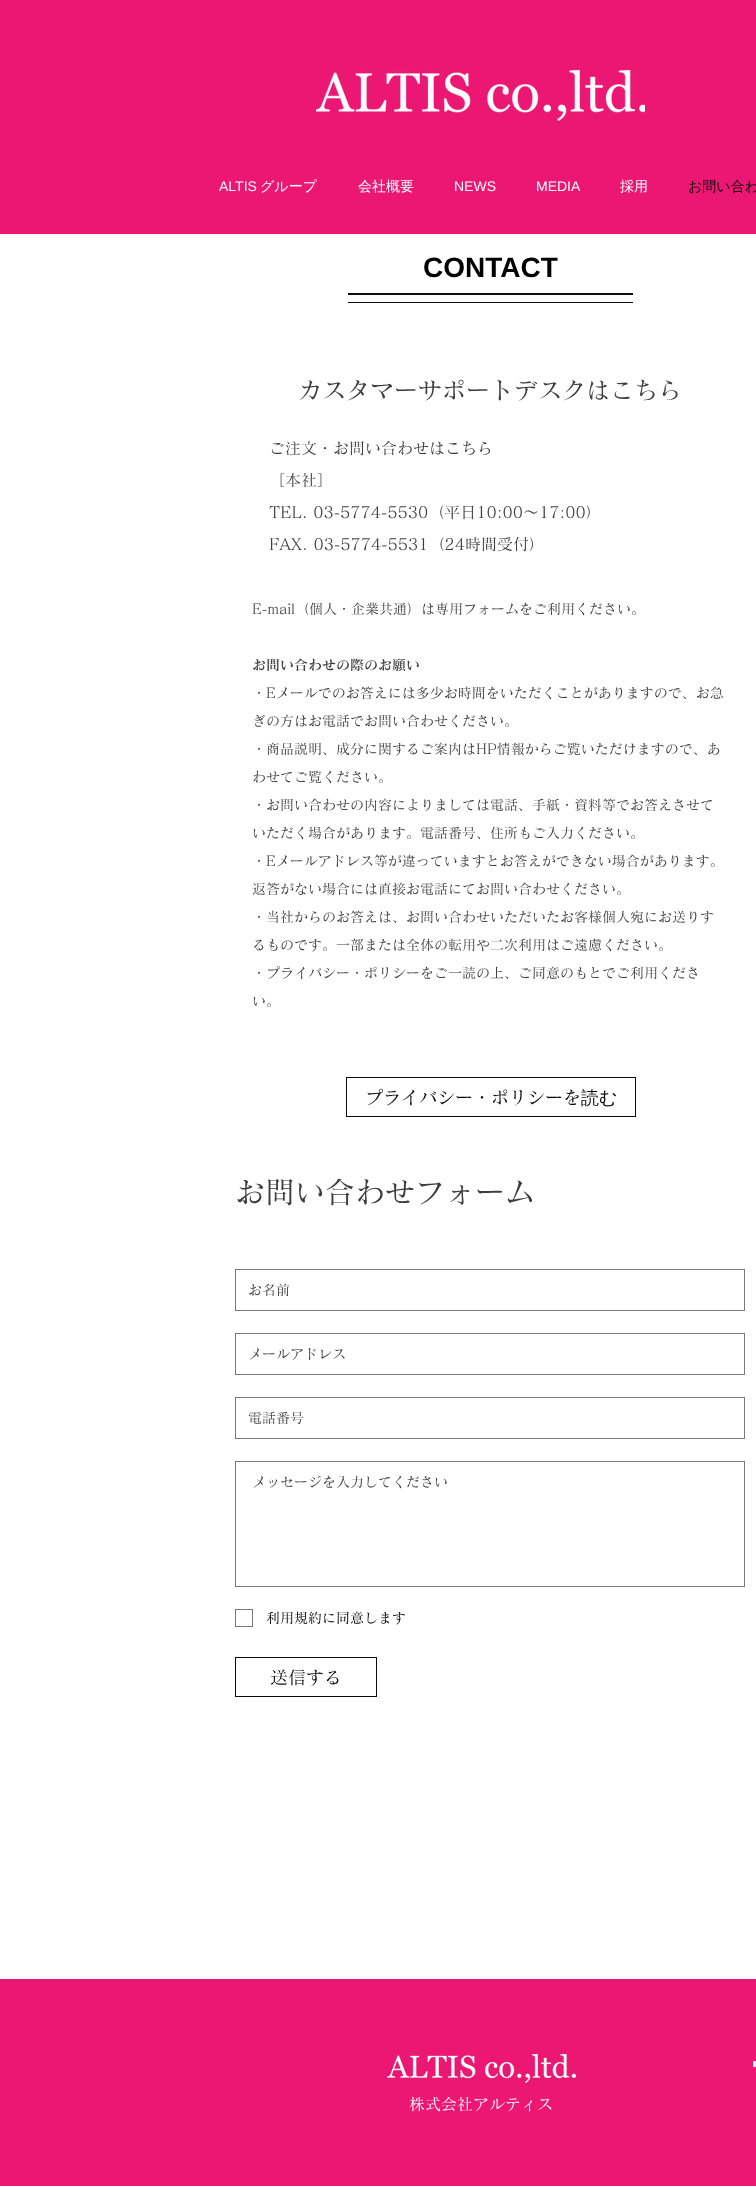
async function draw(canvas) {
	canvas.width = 756;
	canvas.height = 2186;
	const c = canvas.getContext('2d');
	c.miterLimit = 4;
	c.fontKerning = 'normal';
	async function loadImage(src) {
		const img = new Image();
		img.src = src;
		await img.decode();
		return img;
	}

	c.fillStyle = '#fff';
	c.fillRect(0, 0, 756, 2186);
	c.fillStyle = '#eb1773';
	c.fillRect(0, 0, 756, 234);
	c.drawImage(await loadImage('img1.png'), 316, 70, 329, 51);
	c.font = '14px Liberation Sans';
	c.fillStyle = '#fff';
	c.fillText('ALTIS', 219, 191);
	c.font = '500 14px WenQuanYi Zen Hei';
	c.fillText('グループ', 260, 191);
	c.fillText('会社概要', 358, 191);
	c.font = '14px Liberation Sans';
	c.fillText('NEWS', 454, 191);
	c.fillText('MEDIA', 536, 191);
	c.font = '500 14px WenQuanYi Zen Hei';
	c.fillText('採用', 620, 191);
	c.fillStyle = '#0b0b0b';
	c.fillText('お問い合わ', 688, 191);
	c.font = 'bold 28px Liberation Sans';
	c.fillStyle = '#000';
	c.fillText('CONTACT', 423, 277);
	c.fillStyle = '#0b0b0b';
	c.fillRect(348, 293, 285, 2);
	c.fillRect(348, 302, 285, 1);
	c.font = '500 24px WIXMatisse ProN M';
	c.fillStyle = '#3d3d3d';
	c.fillText('カスタマーサポートデスクはこちら', 298, 399);
	c.font = '500 16px WIXMatisse ProN M';
	for (const [text, x, y] of [
		['ご注文・お問い合わせはこちら', 269, 454],
		['［本社］', 269, 486],
		['TEL. 03-5774-5530（平日10:00〜17:00）', 269, 518],
		['FAX. 03-5774-5531（24時間受付）', 269, 550],
	]) {
		c.fillText(text, x, y);
	}
	c.font = '500 14px WIXMatisse ProN M';
	c.fillText('E-mail（個人・企業共通）は専用フォームをご利用ください。', 252, 614);
	c.font = '600 14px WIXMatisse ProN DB';
	c.fillText('お問い合わせの際のお願い', 252, 670);
	c.font = '500 14px WIXMatisse ProN M';
	for (const [text, x, y] of [
		['・Eメールでのお答えには多少お時間をいただくことがありますので、お急', 252, 698],
		['ぎの方はお電話でお問い合わせください。', 252, 726],
		['・商品説明、成分に関するご案内はHP情報からご覧いただけますので、あ', 252, 754],
		['わせてご覧ください。', 252, 782],
		['・お問い合わせの内容によりましては電話、手紙・資料等でお答えさせて', 252, 810],
		['いただく場合があります。電話番号、住所もご入力ください。', 252, 838],
		['・Eメールアドレス等が違っていますとお答えができない場合があります。', 252, 866],
		['返答がない場合には直接お電話にてお問い合わせください。', 252, 894],
		['・当社からのお答えは、お問い合わせいただいたお客様個人宛にお送りす', 252, 922],
		['るものです。一部または全体の転用や二次利用はご遠慮ください。', 252, 950],
		['・プライバシー・ポリシーをご一読の上、ご同意のもとでご利用くださ', 252, 978],
		['い。', 252, 1006],
	]) {
		c.fillText(text, x, y);
	}
	c.strokeStyle = '#0b0b0b';
	c.strokeRect(346.5, 1077.5, 289, 39);
	c.font = '500 18px WIXMatisse ProN M';
	c.fillStyle = '#0b0b0b';
	c.fillText('プライバシー・ポリシーを', 365, 1104);
	c.font = '500 18px WenQuanYi Zen Hei';
	c.fillText('読む', 581, 1104);
	c.font = '500 30px WIXMatisse ProN M';
	c.fillStyle = '#3d3d3d';
	c.fillText('お問い合わせフォーム', 235, 1203);
	c.strokeStyle = '#797979';
	c.strokeRect(235.5, 1269.5, 509, 41);
	c.font = '500 14px WIXMatisse ProN M';
	c.fillText('お名前', 248, 1295);
	c.strokeRect(235.5, 1333.5, 509, 41);
	c.fillText('メールアドレス', 248, 1359);
	c.strokeRect(235.5, 1397.5, 509, 41);
	c.fillText('電話番号', 248, 1423);
	c.strokeRect(235.5, 1461.5, 509, 125);
	c.fillText('メッセージを入力してください', 252, 1487);
	c.strokeRect(235.5, 1609.5, 17, 17);
	c.fillStyle = '#000';
	c.fillText('利用規約に同意します', 266, 1623);
	c.strokeStyle = '#0b0b0b';
	c.strokeRect(235.5, 1657.5, 141, 39);
	c.font = '500 18px WIXMatisse ProN M';
	c.fillStyle = '#0b0b0b';
	c.fillText('送信する', 270, 1684);
	c.fillStyle = '#eb1773';
	c.fillRect(0, 1979, 756, 207);
	c.drawImage(await loadImage('img2.png'), 387, 2054, 189, 29);
	c.drawImage(await loadImage('img3.png'), 753, 2060, 3, 8);
	c.font = '500 16px WIXMatisse ProN M';
	c.fillStyle = '#fff';
	c.fillText('株式会社アルティス', 409, 2110);
}

draw(document.querySelector('canvas'));
